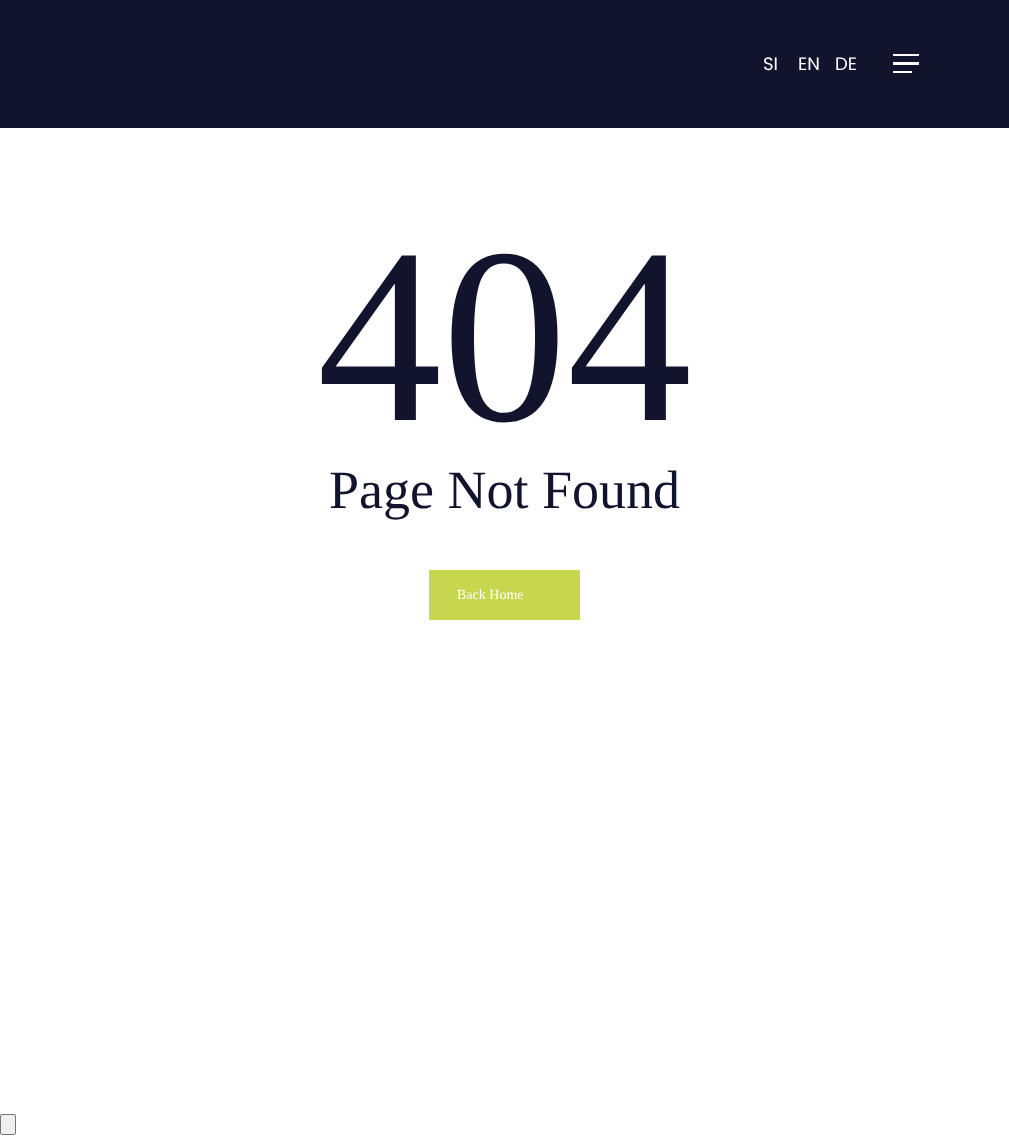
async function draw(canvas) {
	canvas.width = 1009;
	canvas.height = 1136;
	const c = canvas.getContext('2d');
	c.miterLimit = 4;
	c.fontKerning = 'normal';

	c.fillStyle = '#fff';
	c.fillRect(0, 0, 1009, 1136);
	c.fillStyle = '#12142d';
	c.fillRect(0, 0, 1009, 128);
	c.font = '18px Poppins';
	c.fillStyle = '#fff';
	for (const [text, x, y] of [
		['SI', 763, 70],
		['EN', 798, 70],
		['DE', 835, 70],
	]) {
		c.fillText(text, x, y);
	}
	for (const [x, y, w, h, color] of [
		[893, 54, 26, 2, '#fff'],
		[893, 71, 19, 2, '#fff'],
		[893, 62, 26, 3, '#fff'],
	]) {
		c.fillStyle = color;
		c.fillRect(x, y, w, h);
	}
	c.font = '250px Liberation Serif';
	c.fillStyle = '#12142d';
	c.fillText('404', 317, 420);
	c.font = '54px Liberation Serif';
	c.fillText('Page Not Found', 329, 508);
	c.fillStyle = '#c6d64e';
	c.beginPath();
	c.roundRect(429, 570, 151, 50, 1);
	c.fill();
	c.font = '14px Liberation Serif';
	c.fillStyle = '#fff';
	c.fillText('Back Home', 457, 599);
	c.fillStyle = '#efefef';
	c.beginPath();
	c.roundRect(0.5, 1114.5, 15, 20, 1.5);
	c.fill();
	c.strokeStyle = '#767676';
	c.stroke();
}

draw(document.querySelector('canvas'));
